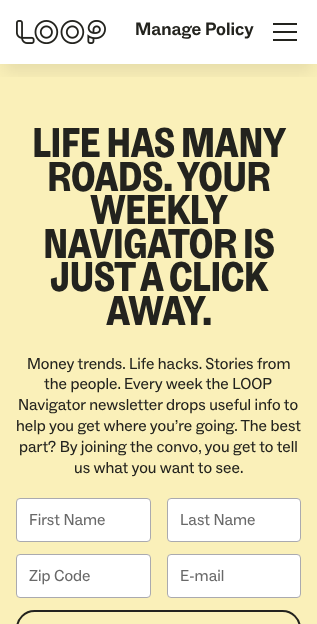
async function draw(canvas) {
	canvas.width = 317;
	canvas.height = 624;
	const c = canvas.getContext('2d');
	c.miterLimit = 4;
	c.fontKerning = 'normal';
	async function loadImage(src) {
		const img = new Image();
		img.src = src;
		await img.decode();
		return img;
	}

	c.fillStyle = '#fff';
	c.fillRect(0, 0, 317, 624);
	c.fillStyle = '#faf0b9';
	c.fillRect(0, 64, 317, 560);
	c.save();
	c.beginPath();
	c.rect(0, 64, 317, 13);
	c.clip();
	c.fillStyle = '#00000014';
	c.filter = 'blur(8px)';
	c.beginPath();
	c.rect(4, 16, 309, 56);
	c.fill();
	c.filter = 'none';
	c.restore();
	c.drawImage(await loadImage('img1.png'), 16, 20, 90, 24);
	c.font = 'bold 18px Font';
	c.fillStyle = '#23231e';
	c.fillText('Manage Policy', 135, 35);
	for (const [x, y, w, h, color] of [
		[273, 23, 24, 2, '#23231e'],
		[273, 31, 24, 2, '#23231e'],
		[273, 39, 24, 2, '#23231e'],
	]) {
		c.fillStyle = color;
		c.fillRect(x, y, w, h);
	}
	c.letterSpacing = '-0.8px';
	c.font = '900 42px Font';
	for (const [text, x, y] of [
		['LIFE HAS MANY', 32, 157],
		['ROADS. YOUR', 47, 191],
		['WEEKLY', 90, 224],
		['NAVIGATOR IS', 43, 258],
		['JUST A CLICK', 50, 291],
		['AWAY.', 106, 325],
	]) {
		c.fillText(text, x, y);
	}
	c.letterSpacing = '0px';
	c.font = '16px Font';
	for (const [text, x, y] of [
		['Money trends. Life hacks. Stories from', 27, 369],
		['the people. Every week the LOOP', 44, 389],
		['Navigator newsletter drops useful info to', 18, 410],
		['help you get where you’re going. The best', 16, 431],
		['part? By joining the convo, you get to tell', 19, 452],
		['us what you want to see.', 74, 473],
	]) {
		c.fillText(text, x, y);
	}
	c.fillStyle = '#fff';
	c.beginPath();
	c.roundRect(16.5, 498.5, 134, 43, 3.5);
	c.fill();
	c.strokeStyle = '#aaaaaf';
	c.stroke();
	c.fillStyle = '#696969';
	c.fillText('First Name', 29, 525);
	c.fillStyle = '#fff';
	c.beginPath();
	c.roundRect(167.5, 498.5, 133, 43, 3.5);
	c.fill();
	c.stroke();
	c.fillStyle = '#696969';
	c.fillText('Last Name', 180, 525);
	c.fillStyle = '#fff';
	c.beginPath();
	c.roundRect(16.5, 554.5, 134, 43, 3.5);
	c.fill();
	c.stroke();
	c.fillStyle = '#696969';
	c.fillText('Zip Code', 29, 581);
	c.fillStyle = '#fff';
	c.beginPath();
	c.roundRect(167.5, 554.5, 133, 43, 3.5);
	c.fill();
	c.stroke();
	c.fillStyle = '#696969';
	c.fillText('E-mail', 180, 581);
	c.beginPath();
	c.roundRect(17, 611, 283, 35, 20);
	c.strokeStyle = '#23231e';
	c.lineWidth = 2;
	c.stroke();
}

draw(document.querySelector('canvas'));
